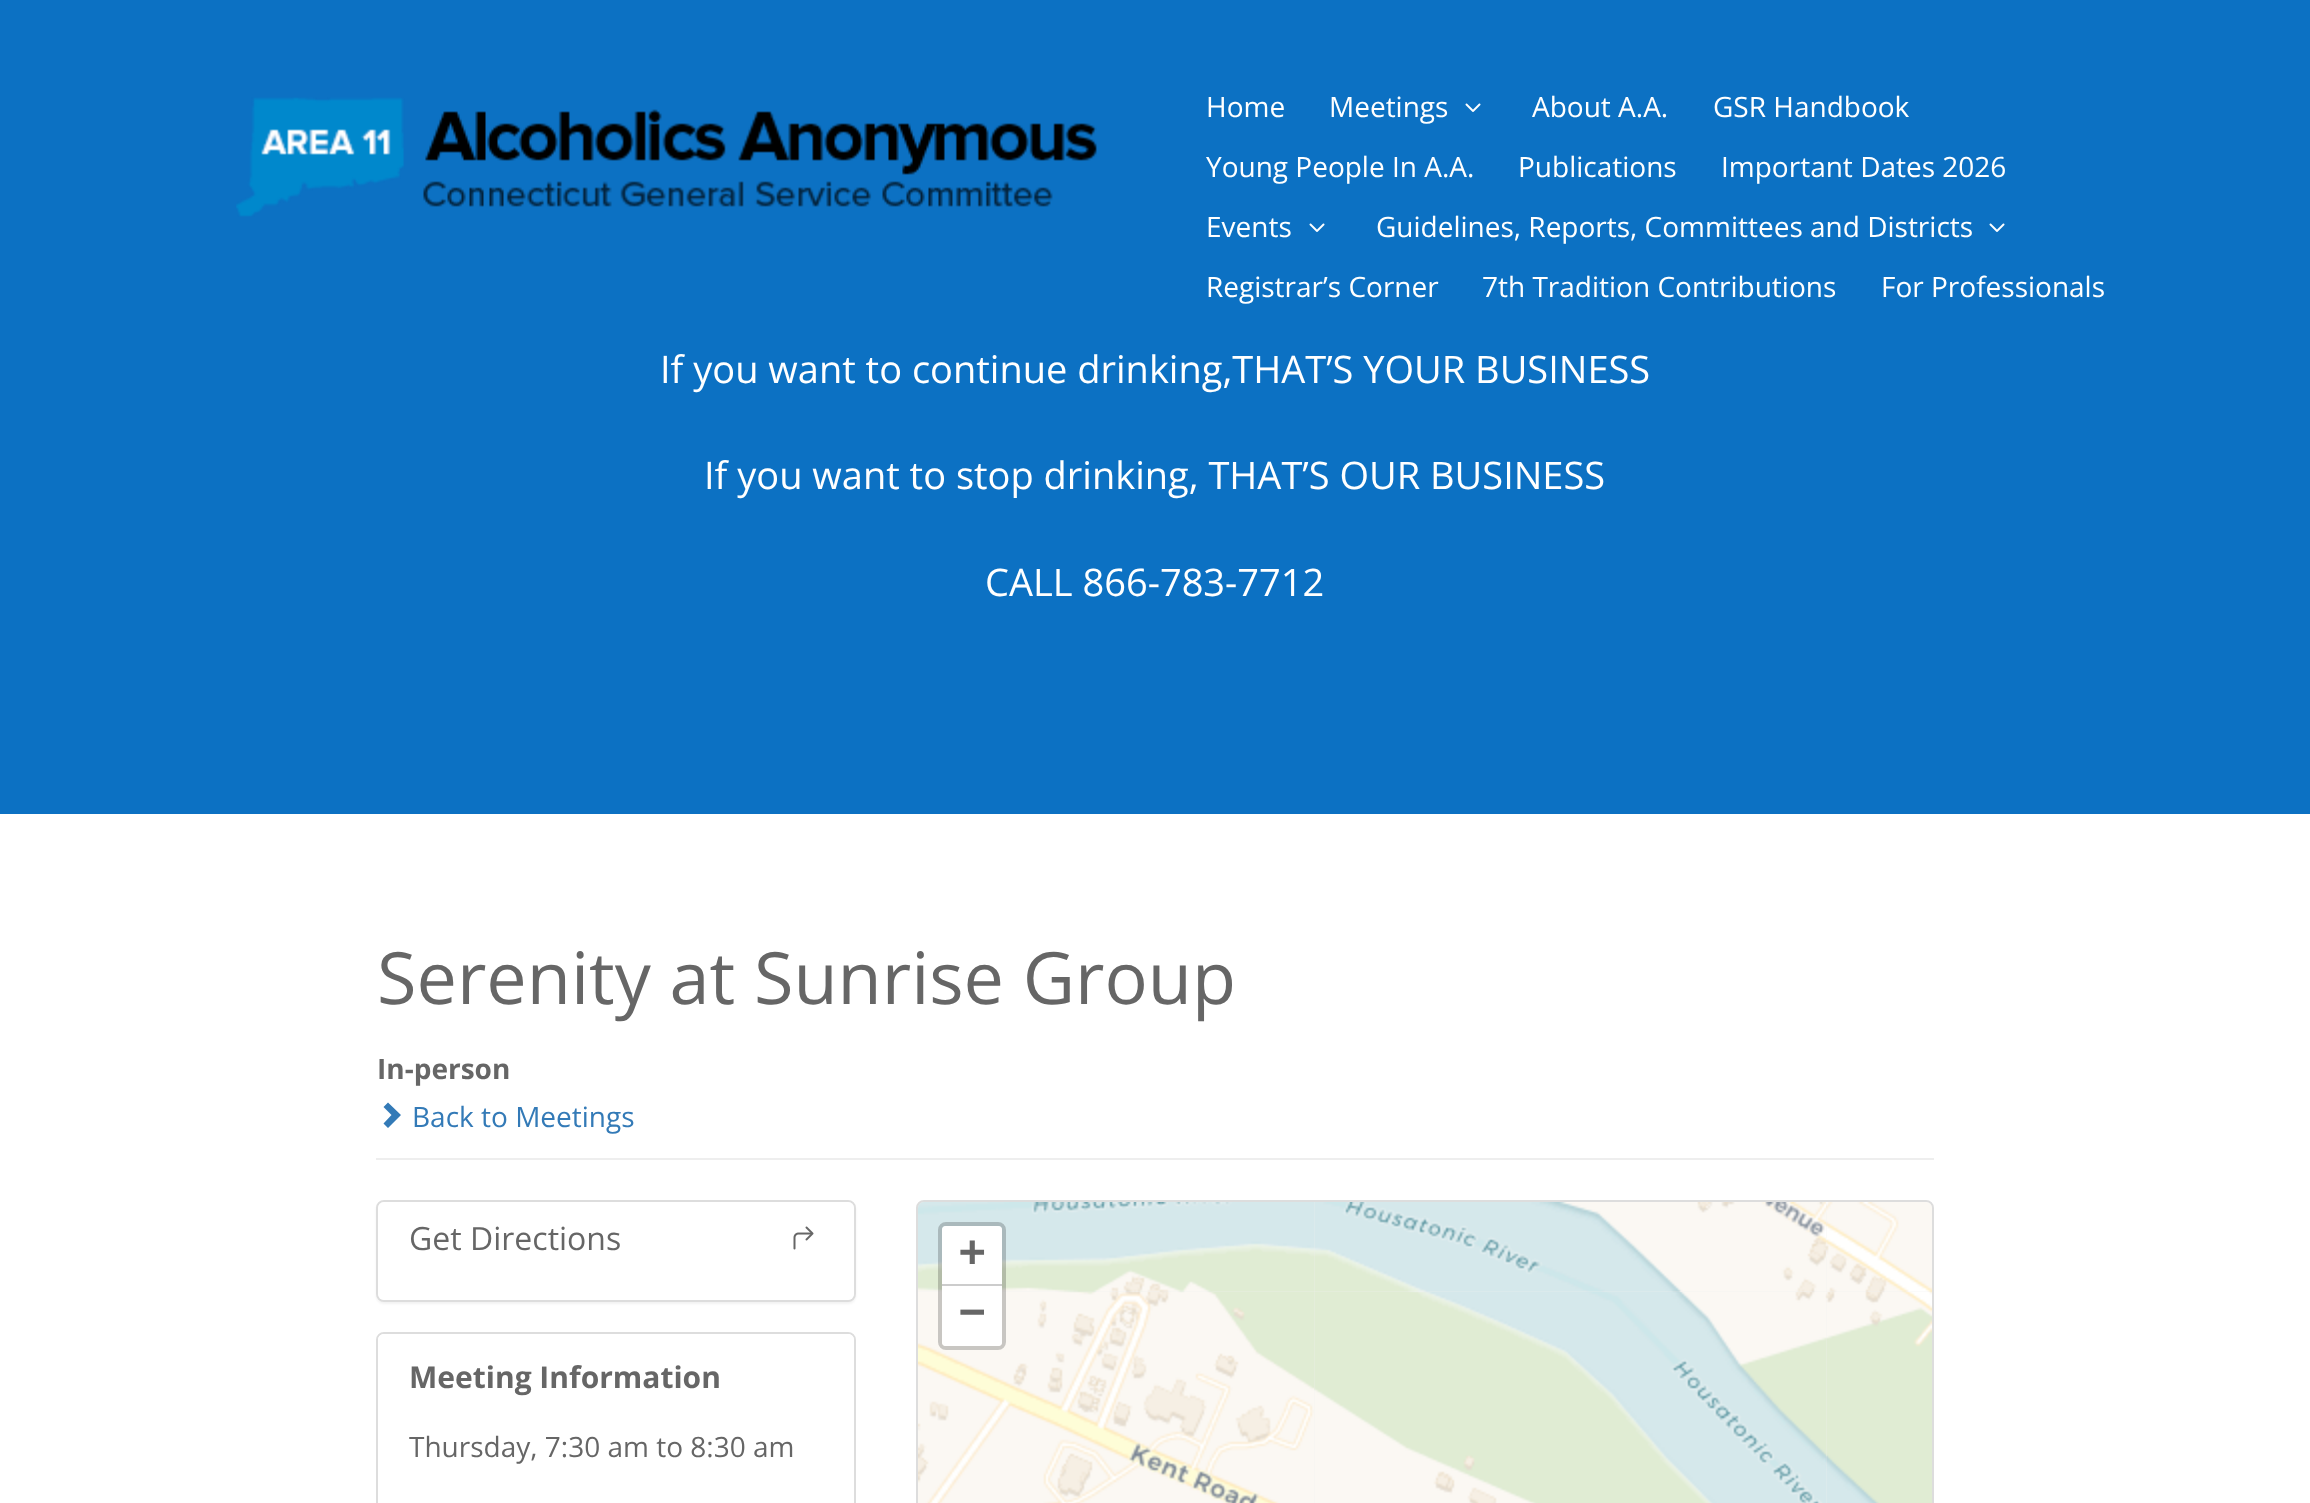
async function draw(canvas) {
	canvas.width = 2310;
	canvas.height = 1503;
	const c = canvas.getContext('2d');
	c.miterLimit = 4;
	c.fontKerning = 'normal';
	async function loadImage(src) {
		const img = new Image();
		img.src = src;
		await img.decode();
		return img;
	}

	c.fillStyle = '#fff';
	c.fillRect(0, 0, 2310, 1503);
	c.fillStyle = '#0c71c3';
	c.fillRect(0, 0, 2310, 814);
	c.drawImage(await loadImage('img1.png'), 236, 97, 861, 120);
	c.font = '28px Open Sans';
	c.fillStyle = '#fff';
	c.fillText('Home', 1206, 117);
	c.fillText('Meetings', 1329, 117);
	c.drawImage(await loadImage('img2.png'), 1465, 103, 16, 9);
	for (const [text, x, y] of [
		['About A.A.', 1532, 117],
		['GSR Handbook', 1713, 117],
		['Young People In A.A.', 1206, 177],
		['Publications', 1518, 177],
		['Important Dates 2026', 1721, 177],
		['Events', 1206, 237],
	]) {
		c.fillText(text, x, y);
	}
	c.drawImage(await loadImage('img2.png'), 1309, 223, 16, 9);
	c.fillText('Guidelines, Reports, Committees and Districts', 1376, 237);
	c.drawImage(await loadImage('img2.png'), 1989, 223, 16, 9);
	for (const [text, x, y] of [
		['Registrar’s Corner', 1206, 297],
		['7th Tradition Contributions', 1482, 297],
		['For Professionals', 1881, 297],
	]) {
		c.fillText(text, x, y);
	}
	c.font = '38px Open Sans';
	for (const [text, x, y] of [
		['If you want to continue drinking,THAT’S YOUR BUSINESS', 660, 383],
		['If you want to stop drinking, THAT’S OUR BUSINESS', 704, 489],
		['CALL 866-783-7712', 985, 596],
	]) {
		c.fillText(text, x, y);
	}
	c.fillStyle = '#eee';
	c.fillRect(376, 1158, 1558, 2);
	c.font = '72px Open Sans';
	c.fillStyle = '#666';
	c.fillText('Serenity at Sunrise Group', 377, 1004);
	c.font = 'bold 28px Open Sans';
	c.fillText('In-person', 377, 1079);
	c.fillStyle = '#337ab7';
	c.beginPath();
	c.moveTo(401, 1115);
	c.lineTo(388, 1128);
	c.lineTo(383.5, 1123.5);
	c.lineTo(391.5, 1115);
	c.lineTo(383.5, 1107);
	c.lineTo(388, 1102.5);
	c.closePath();
	c.fill();
	c.font = '28px Open Sans';
	c.fillText('Back to Meetings', 412, 1127);
	c.fillStyle = '#0000000d';
	c.filter = 'blur(1px)';
	c.beginPath();
	c.roundRect(376, 1202, 480, 102, 8);
	c.fill();
	c.filter = 'none';
	c.beginPath();
	c.roundRect(377, 1201, 478, 100, 7);
	c.strokeStyle = '#ddd';
	c.lineWidth = 2;
	c.stroke();
	c.fillStyle = '#fff';
	c.beginPath();
	c.roundRect(378, 1202, 476, 98, 6);
	c.fill();
	c.font = '32px Open Sans';
	c.fillStyle = '#666';
	c.fillText('Get Directions', 409, 1250);
	c.drawImage(await loadImage('img3.png'), 793, 1226, 21, 24);
	c.beginPath();
	c.roundRect(377, 1333, 478, 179, 7);
	c.stroke();
	c.fillStyle = '#fff';
	c.beginPath();
	c.moveTo(384, 1334);
	c.lineTo(848, 1334);
	c.bezierCurveTo(851.5, 1334, 854, 1336.5, 854, 1340);
	c.lineTo(854, 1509);
	c.lineTo(378, 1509);
	c.lineTo(378, 1340);
	c.bezierCurveTo(378, 1336.5, 380.5, 1334, 384, 1334);
	c.closePath();
	c.fill();
	c.font = 'bold 30px Open Sans';
	c.fillStyle = '#666';
	c.fillText('Meeting Information', 409, 1388);
	c.font = '28px Open Sans';
	c.fillText('Thursday, 7:30 am to 8:30 am', 409, 1457);
	c.fillStyle = '#eee';
	c.beginPath();
	c.roundRect(917, 1201, 1016, 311, 7);
	c.fill();
	c.stroke();
	c.drawImage(await loadImage('img8.png'), 1314, 1292, 512, 211);
	c.drawImage(await loadImage('img5.png'), 1313, 1202, 513, 91);
	c.drawImage(await loadImage('img7.png'), 918, 1292, 396, 211);
	c.drawImage(await loadImage('img4.png'), 918, 1202, 396, 91);
	c.drawImage(await loadImage('img9.png'), 1825, 1292, 107, 211);
	c.drawImage(await loadImage('img6.png'), 1825, 1202, 107, 91);
	c.beginPath();
	c.roundRect(940, 1224, 64, 124, 6);
	c.strokeStyle = '#00000033';
	c.lineWidth = 4;
	c.stroke();
	c.fillStyle = '#fff';
	c.beginPath();
	c.roundRect(942, 1226, 60, 60, [4, 4, 0, 0]);
	c.fill();
	c.fillStyle = '#ccc';
	c.fillRect(942, 1284, 60, 2);
	c.font = 'bold 44px DejaVu Sans Mono';
	c.fillStyle = '#666';
	c.fillText('+', 959, 1266);
	c.fillStyle = '#fff';
	c.beginPath();
	c.roundRect(942, 1286, 60, 60, [0, 0, 4, 4]);
	c.fill();
	c.fillStyle = '#666';
	c.fillText('−', 959, 1326);
}

draw(document.querySelector('canvas'));
